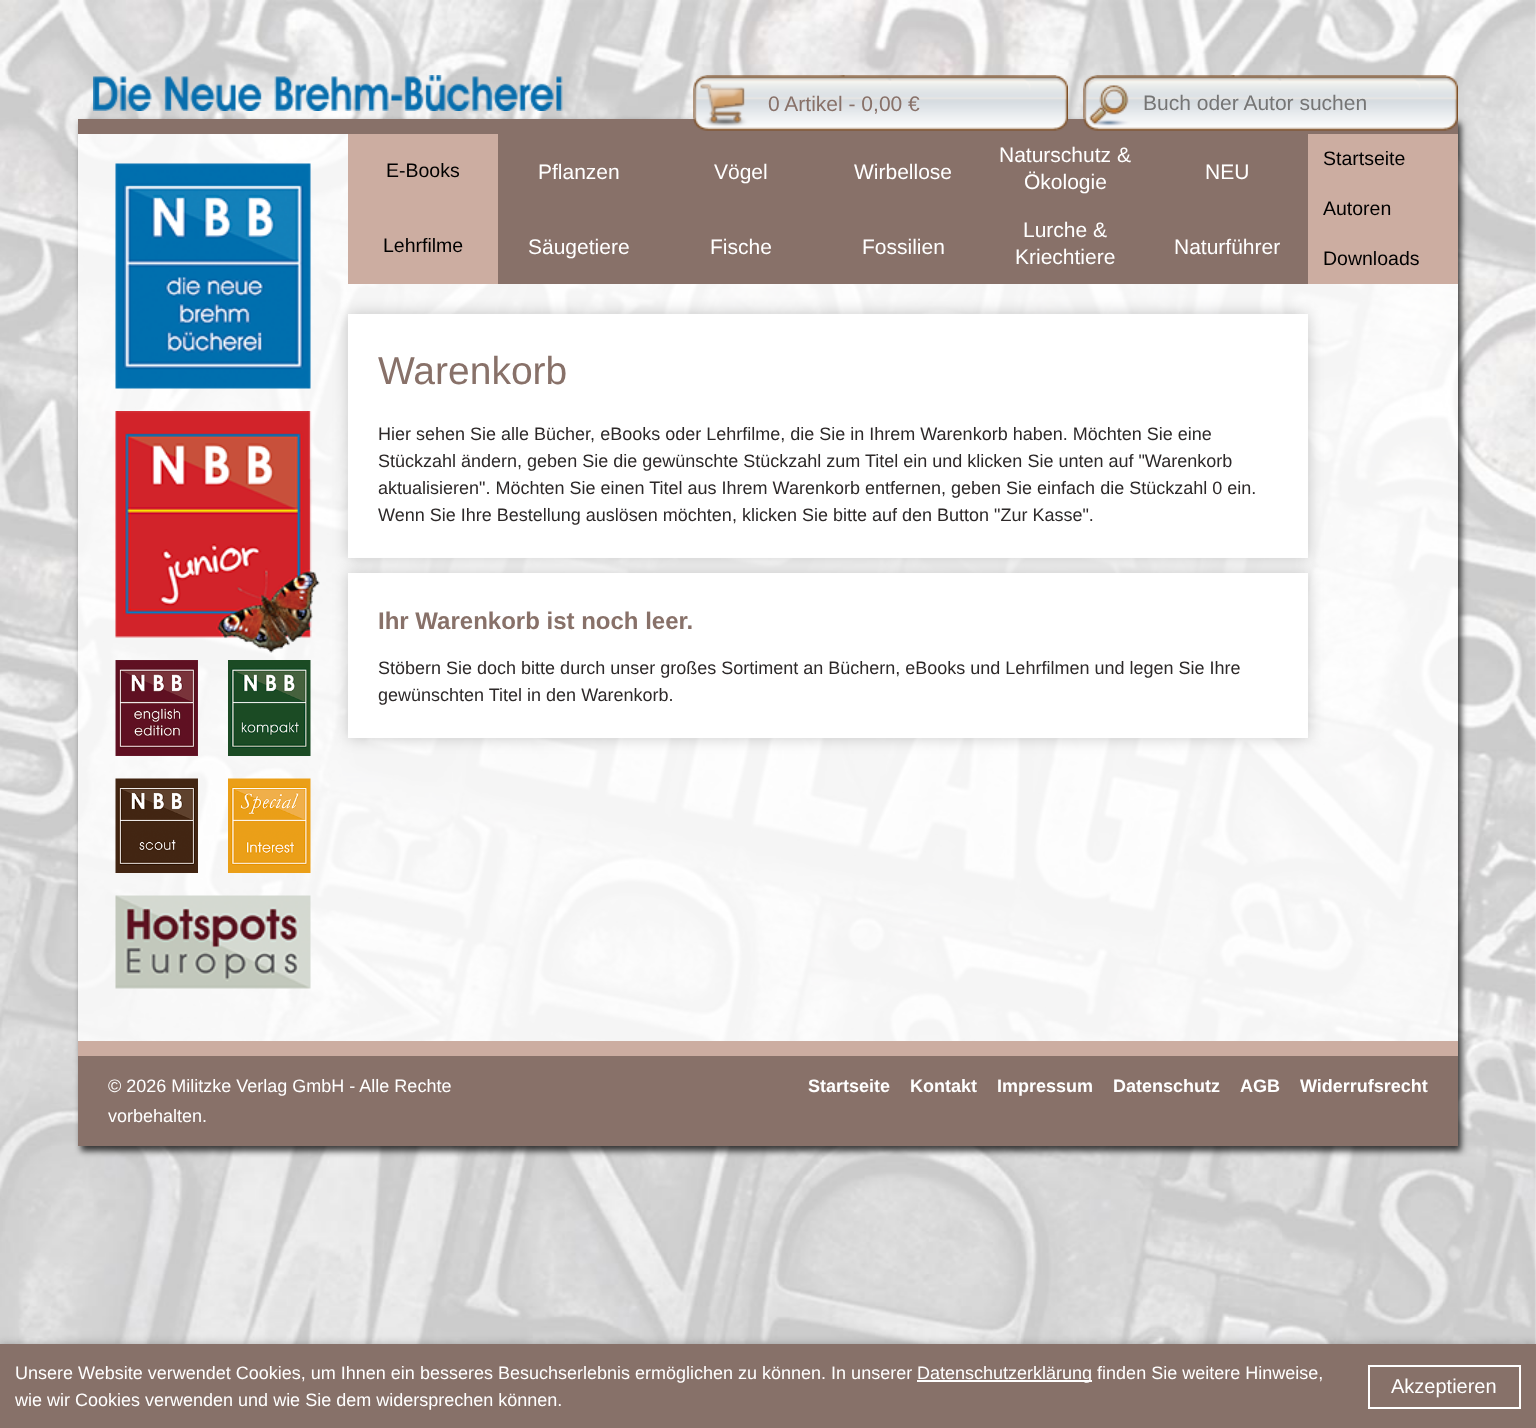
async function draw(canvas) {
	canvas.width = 1536;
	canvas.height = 1428;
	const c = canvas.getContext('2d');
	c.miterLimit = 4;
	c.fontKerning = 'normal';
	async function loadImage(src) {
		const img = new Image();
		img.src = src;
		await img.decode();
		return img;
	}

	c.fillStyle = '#fff';
	c.fillRect(0, 0, 1536, 1428);
	c.drawImage(await loadImage('img1.png'), 0, 0, 1536, 1344);
	c.drawImage(await loadImage('img2.png'), 93, 75, 470, 36);
	c.save();
	c.beginPath();
	c.moveTo(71, 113);
	c.lineTo(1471, 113);
	c.lineTo(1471, 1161);
	c.lineTo(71, 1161);
	c.closePath();
	c.moveTo(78, 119);
	c.lineTo(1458, 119);
	c.lineTo(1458, 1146);
	c.lineTo(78, 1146);
	c.closePath();
	c.clip('evenodd');
	c.fillStyle = '#000000bf';
	c.filter = 'blur(3px)';
	c.beginPath();
	c.rect(81, 123, 1380, 1028);
	c.fill();
	c.filter = 'none';
	c.restore();
	c.fillStyle = '#887169';
	c.fillRect(78, 119, 1380, 15);
	c.drawImage(await loadImage('img3.png'), 693, 75, 375, 56);
	c.font = '21px Liberation Sans';
	c.fillText('0 Artikel - 0,00 €', 768, 111);
	c.drawImage(await loadImage('img4.png'), 1083, 75, 375, 56);
	c.fillStyle = '#757575';
	c.fillText('Buch oder Autor suchen', 1143, 110);
	c.fillStyle = '#ffffffcc';
	c.fillRect(78, 134, 1380, 907);
	c.drawImage(await loadImage('img5.png'), 115, 163, 196, 226);
	c.drawImage(await loadImage('img6.png'), 115, 411, 205, 242);
	c.drawImage(await loadImage('img7.png'), 115, 660, 83, 96);
	c.drawImage(await loadImage('img8.png'), 228, 660, 83, 96);
	c.drawImage(await loadImage('img9.png'), 115, 778, 83, 95);
	c.drawImage(await loadImage('img10.png'), 228, 778, 83, 95);
	c.drawImage(await loadImage('img11.png'), 115, 895, 196, 94);
	c.fillStyle = '#ccada1';
	c.fillRect(348, 134, 1110, 150);
	c.font = '19.5px Liberation Sans';
	c.fillStyle = '#000';
	c.fillText('E-Books', 386, 177);
	c.fillText('Lehrfilme', 383, 252);
	c.fillStyle = '#887169';
	c.fillRect(498, 134, 810, 150);
	c.font = '21px Liberation Sans';
	c.fillStyle = '#fff';
	for (const [text, x, y] of [
		['Pflanzen', 538, 179],
		['Vögel', 714, 179],
		['Wirbellose', 854, 179],
		['Naturschutz &', 999, 162],
		['Ökologie', 1024, 189],
		['NEU', 1205, 179],
		['Säugetiere', 528, 254],
		['Fische', 710, 254],
		['Fossilien', 862, 254],
		['Lurche &', 1023, 237],
		['Kriechtiere', 1015, 264],
		['Naturführer', 1174, 254],
	]) {
		c.fillText(text, x, y);
	}
	c.font = '19.5px Liberation Sans';
	c.fillStyle = '#000';
	for (const [text, x, y] of [
		['Startseite', 1323, 165],
		['Autoren', 1323, 215],
		['Downloads', 1323, 265],
	]) {
		c.fillText(text, x, y);
	}
	c.fillStyle = '#00000033';
	c.filter = 'blur(7.5px)';
	c.beginPath();
	c.rect(348, 314, 960, 244);
	c.fill();
	c.filter = 'none';
	c.fillStyle = '#fff';
	c.fillRect(348, 314, 960, 244);
	c.font = '39px Liberation Sans';
	c.fillStyle = '#887169';
	c.fillText('Warenkorb', 378, 384);
	c.font = '18px Liberation Sans';
	c.fillStyle = '#2d2929';
	for (const [text, x, y] of [
		['Hier sehen Sie alle Bücher, eBooks oder Lehrfilme, die Sie in Ihrem Warenkorb haben. Möchten Sie eine', 378, 440],
		['Stückzahl ändern, geben Sie die gewünschte Stückzahl zum Titel ein und klicken Sie unten auf "Warenkorb', 378, 467],
		['aktualisieren". Möchten Sie einen Titel aus Ihrem Warenkorb entfernen, geben Sie einfach die Stückzahl 0 ein.', 378, 494],
		['Wenn Sie Ihre Bestellung auslösen möchten, klicken Sie bitte auf den Button "Zur Kasse".', 378, 521],
	]) {
		c.fillText(text, x, y);
	}
	c.fillStyle = '#00000033';
	c.filter = 'blur(7.5px)';
	c.beginPath();
	c.rect(348, 573, 960, 165);
	c.fill();
	c.filter = 'none';
	c.fillStyle = '#fff';
	c.fillRect(348, 573, 960, 165);
	c.font = 'bold 24px Liberation Sans';
	c.fillStyle = '#887169';
	c.fillText('Ihr Warenkorb ist noch leer.', 378, 629);
	c.font = '18px Liberation Sans';
	c.fillStyle = '#2d2929';
	c.fillText('Stöbern Sie doch bitte durch unser großes Sortiment an Büchern, eBooks und Lehrfilmen und legen Sie Ihre', 378, 674);
	c.fillText('gewünschten Titel in den Warenkorb.', 378, 701);
	c.fillStyle = '#887169';
	c.fillRect(78, 1056, 1380, 90);
	c.fillStyle = '#ccada1';
	c.fillRect(78, 1041, 1380, 15);
	c.fillStyle = '#fff';
	c.fillText('© 2026 Militzke Verlag GmbH - Alle Rechte', 108, 1092);
	c.fillText('vorbehalten.', 108, 1122);
	c.font = 'bold 18px Liberation Sans';
	for (const [text, x, y] of [
		['Startseite', 808, 1092],
		['Kontakt', 910, 1092],
		['Impressum', 997, 1092],
		['Datenschutz', 1113, 1092],
		['AGB', 1240, 1092],
		['Widerrufsrecht', 1300, 1092],
	]) {
		c.fillText(text, x, y);
	}
	c.fillStyle = '#00000040';
	c.filter = 'blur(4px)';
	c.beginPath();
	c.rect(0, 1344, 1536, 84);
	c.fill();
	c.filter = 'none';
	c.fillStyle = '#877169';
	c.fillRect(0, 1344, 1536, 84);
	c.font = '18px Liberation Sans';
	c.fillStyle = '#fff';
	c.fillText('Unsere Website verwendet Cookies, um Ihnen ein besseres Besuchserlebnis ermöglichen zu können. In unserer', 15, 1379);
	c.fillRect(917, 1380, 175, 2);
	c.fillText('Datenschutzerklärung finden Sie weitere Hinweise,', 917, 1379);
	c.fillText('wie wir Cookies verwenden und wie Sie dem widersprechen können.', 15, 1406);
	c.strokeStyle = '#fff';
	c.lineWidth = 2;
	c.strokeRect(1369, 1366, 151, 42);
	c.font = '20px Liberation Sans';
	c.fillText('Akzeptieren', 1391, 1393);
}

draw(document.querySelector('canvas'));
